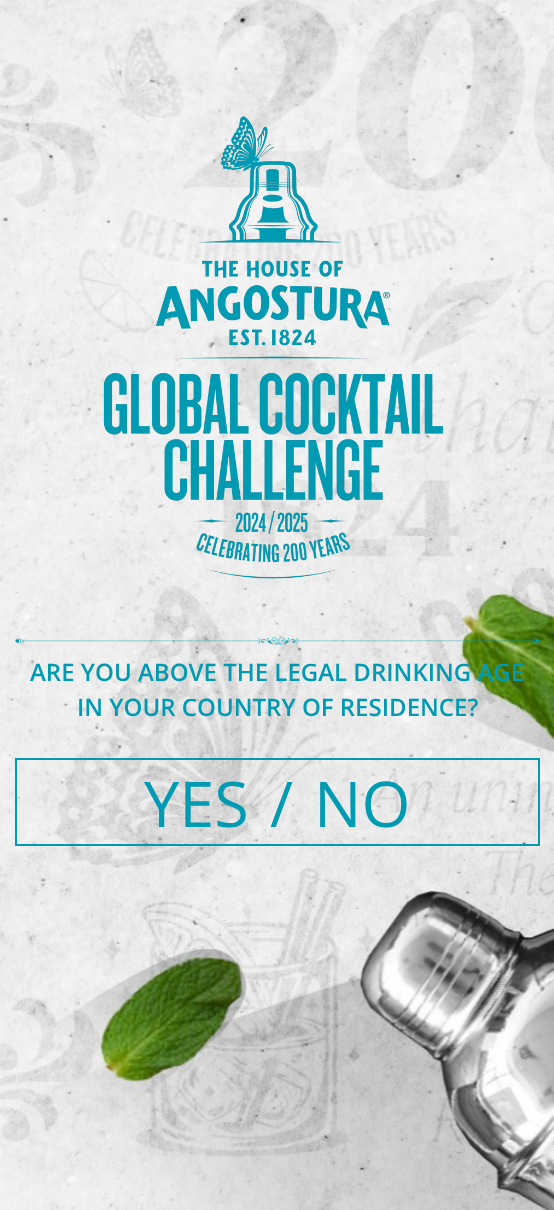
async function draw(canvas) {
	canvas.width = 554;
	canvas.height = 1210;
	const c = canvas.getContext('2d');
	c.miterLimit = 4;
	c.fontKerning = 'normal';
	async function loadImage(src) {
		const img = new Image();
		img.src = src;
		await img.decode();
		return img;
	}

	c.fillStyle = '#fff';
	c.fillRect(0, 0, 554, 1210);
	c.drawImage(await loadImage('img1.png'), 0, 0, 554, 1210);
	c.drawImage(await loadImage('img2.png'), 103, 116, 341, 463);
	c.drawImage(await loadImage('img3.png'), 15, 637, 525, 8);
	c.font = '600 24px Open Sans';
	c.fillStyle = '#009ab2';
	c.fillText('ARE YOU ABOVE THE LEGAL DRINKING AGE', 30, 681);
	c.fillText('IN YOUR COUNTRY OF RESIDENCE?', 77, 716);
	c.strokeStyle = '#009ab2';
	c.lineWidth = 2;
	c.strokeRect(16, 759, 523, 86);
	c.font = '63px Open Sans';
	for (const [text, x, y] of [
		['YES', 144, 827],
		['/', 270, 827],
		['NO', 314, 827],
	]) {
		c.fillText(text, x, y);
	}
}

draw(document.querySelector('canvas'));
